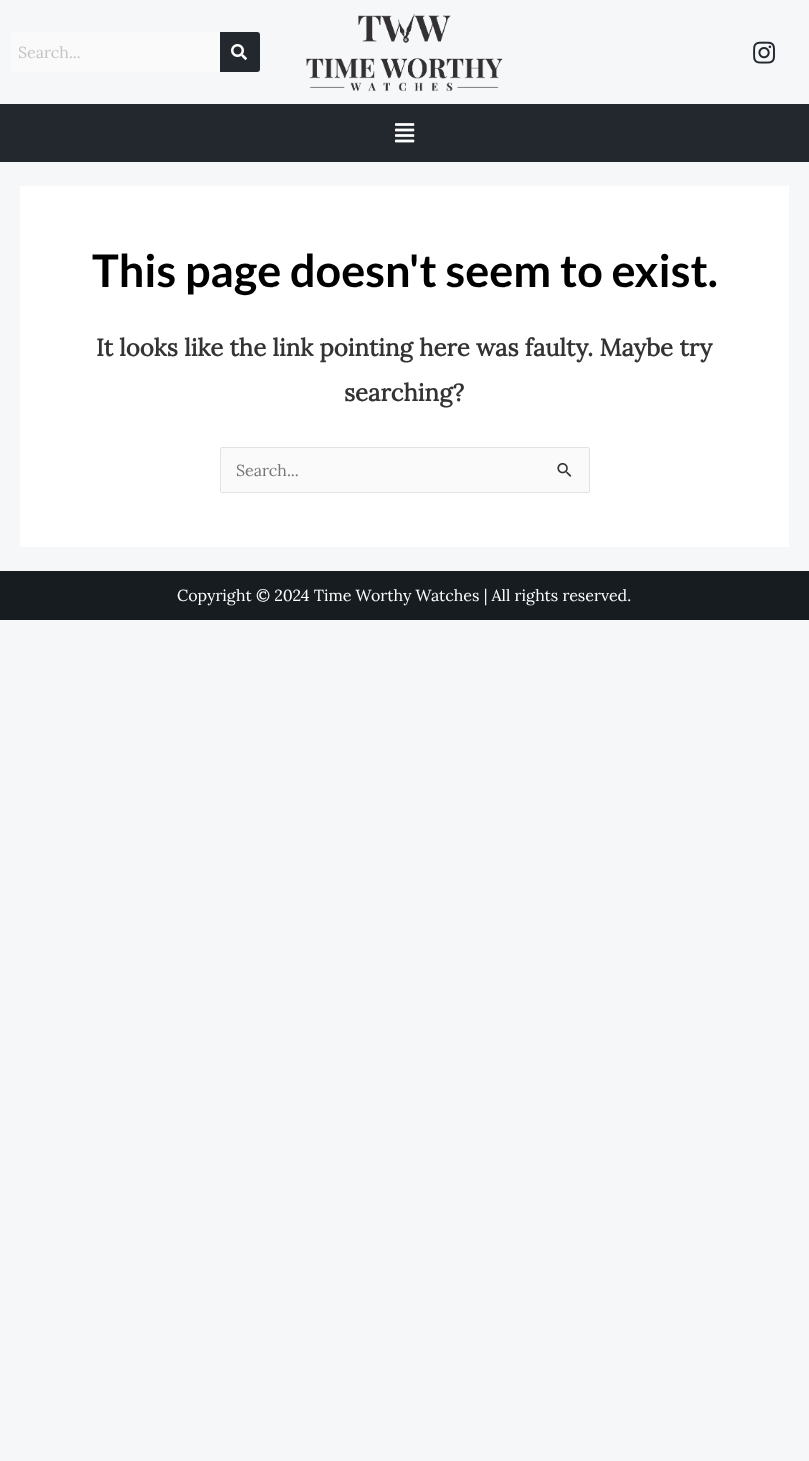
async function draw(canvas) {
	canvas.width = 809;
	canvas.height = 1461;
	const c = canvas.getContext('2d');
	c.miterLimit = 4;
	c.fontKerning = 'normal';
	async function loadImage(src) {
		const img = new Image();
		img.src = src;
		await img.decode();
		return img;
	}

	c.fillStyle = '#f5f7f9';
	c.fillRect(0, 0, 809, 1461);
	c.fillStyle = '#fafafa';
	c.beginPath();
	c.roundRect(10, 32, 210, 40, [3, 0, 0, 3]);
	c.fill();
	c.font = '16px Lora';
	c.fillStyle = '#c4c4c4';
	c.fillText('Search...', 18, 58);
	c.fillStyle = '#23282e';
	c.beginPath();
	c.roundRect(220, 32, 40, 40, [0, 3, 3, 0]);
	c.fill();
	c.drawImage(await loadImage('img1.png'), 231, 44, 16, 16);
	c.drawImage(await loadImage('img2.png'), 306, 13, 197, 79);
	c.drawImage(await loadImage('img3.png'), 753, 41, 22, 23);
	c.fillRect(0, 104, 809, 58);
	c.drawImage(await loadImage('img4.png'), 395, 123, 20, 20);
	c.fillStyle = '#fff';
	c.fillRect(20, 186, 769, 361);
	c.font = 'bold 45px Lato';
	c.fillStyle = '#000';
	c.fillText('This page doesn\'t seem to exist.', 92, 287);
	c.font = 'bold 24px Lora';
	c.fillStyle = '#333';
	c.fillText('It looks like the link pointing here was faulty. Maybe try', 96, 356);
	c.fillText('searching?', 344, 401);
	c.fillStyle = '#fafafa';
	c.beginPath();
	c.roundRect(220.5, 447.5, 369, 45, 1.5);
	c.fill();
	c.strokeStyle = '#e2e2e2';
	c.stroke();
	c.font = '16px Lora';
	c.fillStyle = '#757575';
	c.fillText('Search...', 236, 476);
	c.drawImage(await loadImage('img5.png'), 557, 463, 15, 14);
	c.fillStyle = '#171c20';
	c.fillRect(0, 571, 809, 49);
	c.fillStyle = '#fff';
	c.fillText('Copyright © 2024 Time Worthy Watches | All rights reserved.', 177, 601);
}

draw(document.querySelector('canvas'));
